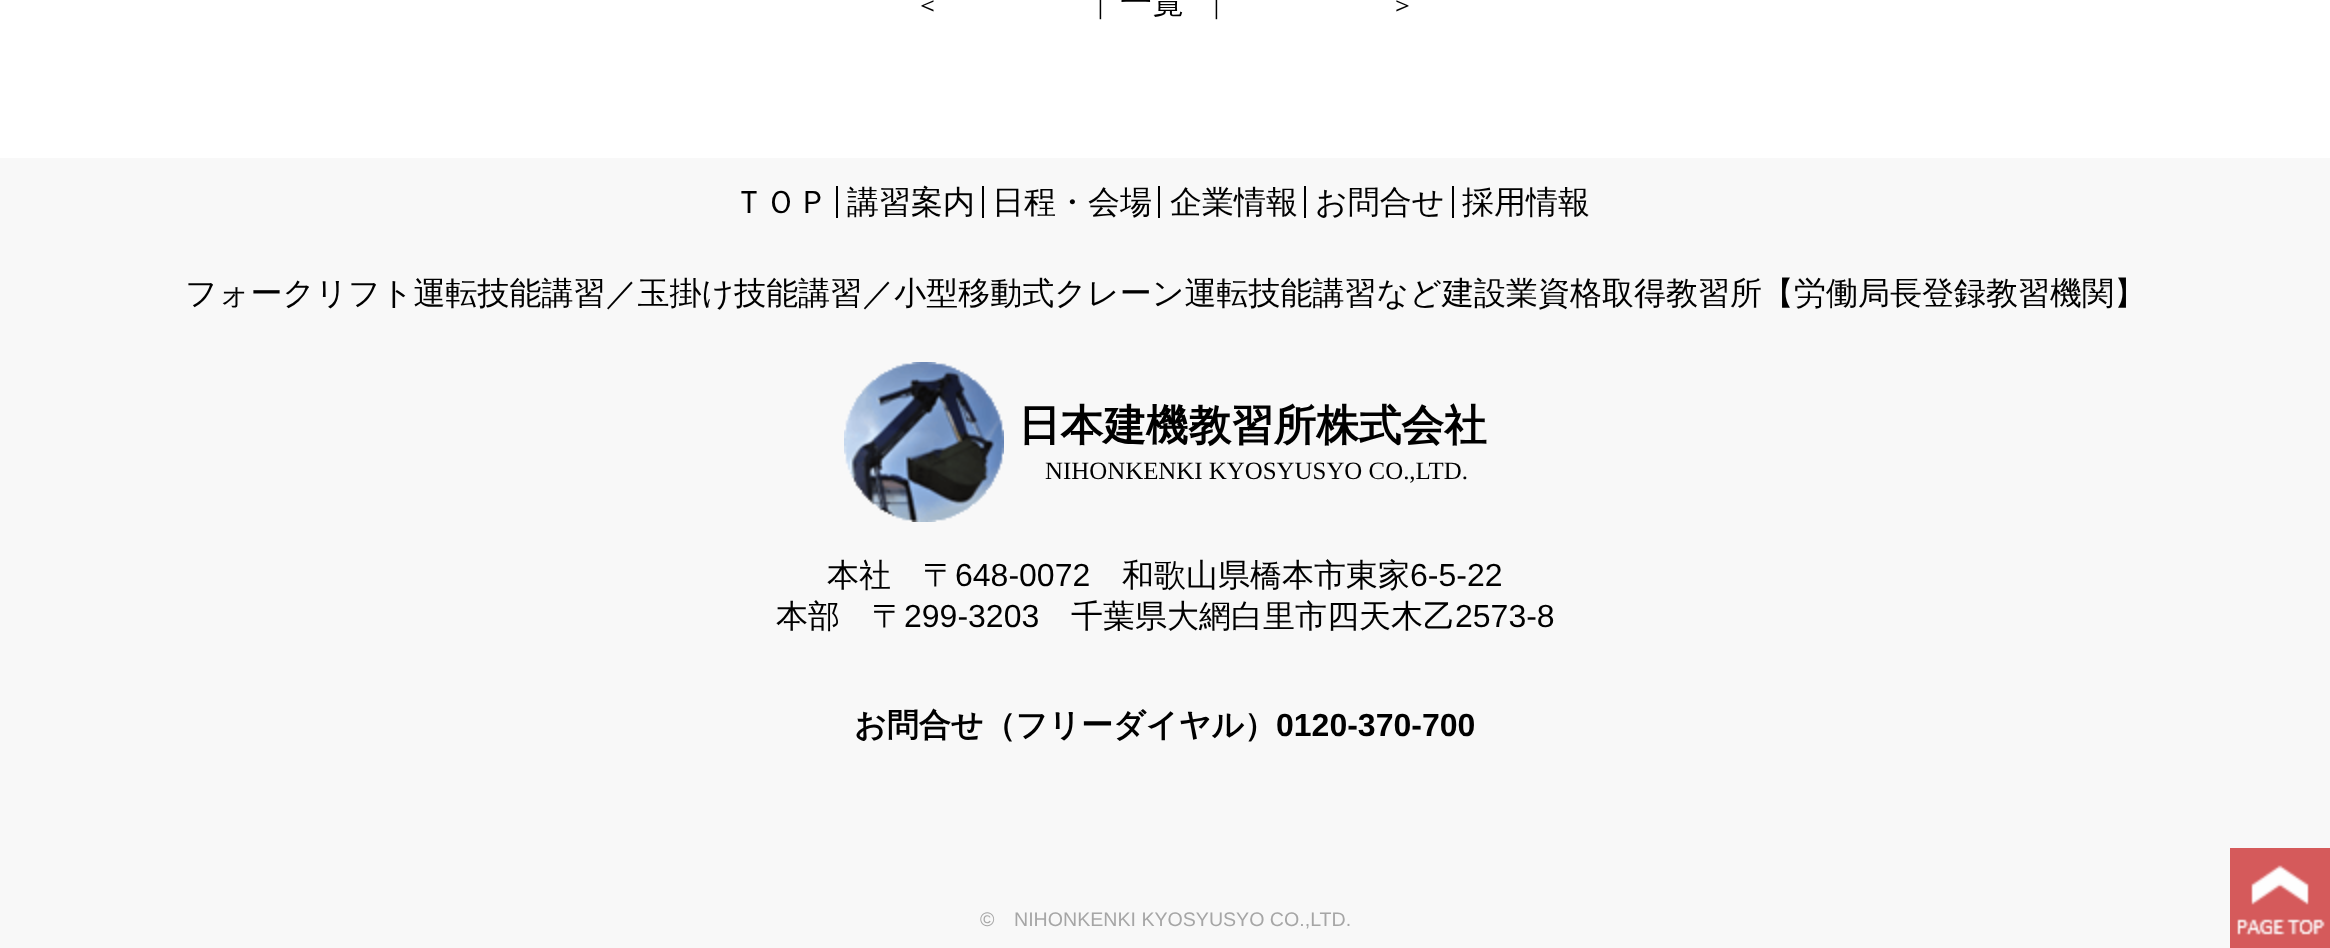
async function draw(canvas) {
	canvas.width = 2330;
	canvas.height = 948;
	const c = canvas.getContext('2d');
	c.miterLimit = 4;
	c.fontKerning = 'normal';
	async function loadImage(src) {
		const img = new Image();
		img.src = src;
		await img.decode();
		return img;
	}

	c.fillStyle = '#fff';
	c.fillRect(0, 0, 2330, 948);
	c.font = '500 24.9px WenQuanYi Zen Hei';
	c.fillStyle = '#000';
	c.fillText('＜', 915, 13);
	c.fillText('｜', 1088, 13);
	c.font = '500 32px WenQuanYi Zen Hei';
	c.fillText('一覧', 1120, 13);
	c.font = '500 24.9px WenQuanYi Zen Hei';
	c.fillText('｜', 1204, 13);
	c.fillText('＞', 1390, 13);
	c.fillStyle = '#f8f8f8';
	c.fillRect(0, 158, 2330, 790);
	c.fillStyle = '#000';
	c.fillRect(836, 186, 2, 32);
	c.font = '500 32px WenQuanYi Zen Hei';
	c.fillText('ＴＯＰ', 733, 213);
	c.fillRect(982, 186, 2, 32);
	c.fillText('講習案内', 847, 213);
	c.fillRect(1158, 186, 2, 32);
	c.fillText('日程・会場', 992, 213);
	c.fillRect(1304, 186, 2, 32);
	c.fillText('企業情報', 1170, 213);
	c.fillRect(1452, 186, 2, 32);
	for (const [text, x, y] of [
		['お問合せ', 1315, 213],
		['採用情報', 1462, 213],
		['フォークリフト運転技能講習／玉掛け技能講習／小型移動式クレーン運転技能講習など建設業資格取得教習所【労働局長登録教習機関】', 185, 304],
	]) {
		c.fillText(text, x, y);
	}
	c.drawImage(await loadImage('img1.png'), 844, 362, 160, 160);
	c.font = 'bold 42.6px WenQuanYi Zen Hei';
	c.fillText('日本建機教習所株式会社', 1018, 440);
	c.font = '24.9px Liberation Serif';
	c.fillText('NIHONKENKI KYOSYUSYO CO.,LTD.', 1045, 479);
	c.font = '500 32px WenQuanYi Zen Hei';
	c.fillText('本社　〒', 827, 586);
	c.font = '32px Liberation Sans';
	c.fillText('648-0072', 955, 586);
	c.font = '500 32px WenQuanYi Zen Hei';
	c.fillText('和歌山県橋本市東家', 1122, 586);
	c.font = '32px Liberation Sans';
	c.fillText('6-5-22', 1410, 586);
	c.font = '500 32px WenQuanYi Zen Hei';
	c.fillText('本部　〒', 776, 627);
	c.font = '32px Liberation Sans';
	c.fillText('299-3203', 904, 627);
	c.font = '500 32px WenQuanYi Zen Hei';
	c.fillText('千葉県大網白里市四天木乙', 1071, 627);
	c.font = '32px Liberation Sans';
	c.fillText('2573-8', 1455, 627);
	c.font = 'bold 32px WenQuanYi Zen Hei';
	c.fillText('お問合せ（フリーダイヤル）', 854, 736);
	c.font = 'bold 32px Liberation Sans';
	c.fillText('0120-370-700', 1276, 736);
	c.font = '19.6px Liberation Sans';
	c.fillStyle = '#a6a6a6';
	c.fillText('©', 980, 926);
	c.fillText('NIHONKENKI KYOSYUSYO CO.,LTD.', 1014, 926);
	c.drawImage(await loadImage('img2.png'), 2230, 848, 100, 100);
}

draw(document.querySelector('canvas'));
